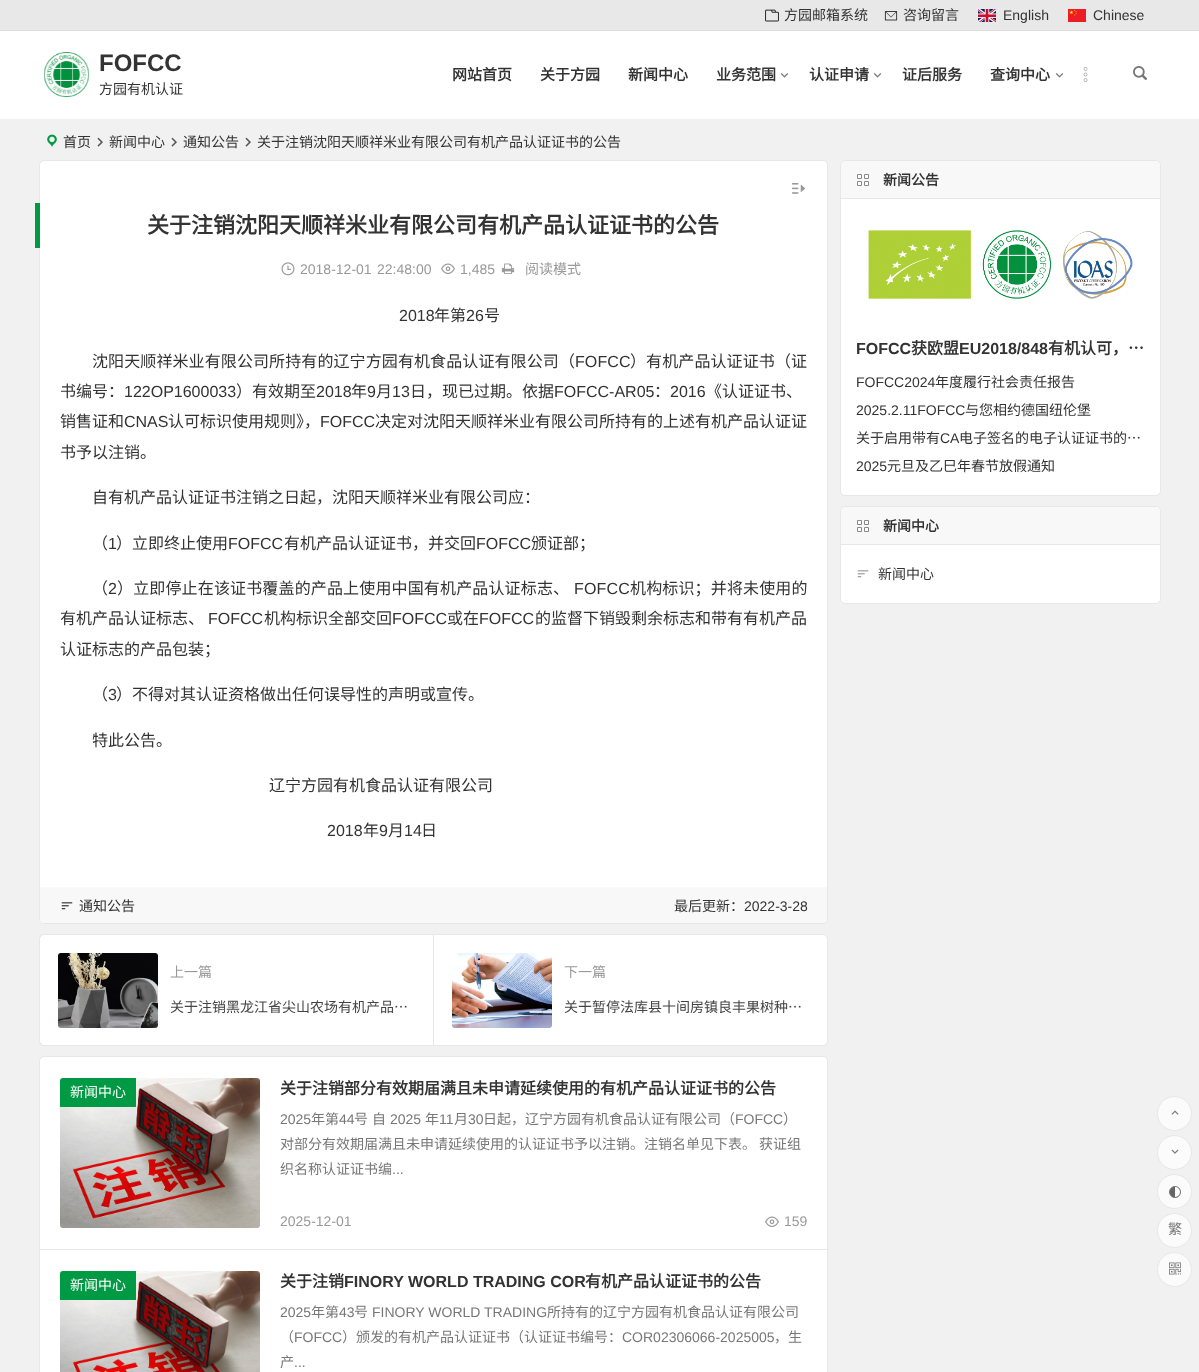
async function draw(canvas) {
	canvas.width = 1199;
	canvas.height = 1372;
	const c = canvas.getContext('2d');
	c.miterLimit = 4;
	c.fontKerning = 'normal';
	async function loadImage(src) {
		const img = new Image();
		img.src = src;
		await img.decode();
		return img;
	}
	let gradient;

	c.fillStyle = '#f1f1f1';
	c.fillRect(0, 0, 1199, 1372);
	c.fillStyle = '#e8e8e8';
	c.fillRect(0, 0, 1199, 30);
	c.fillStyle = '#dedede';
	c.fillRect(0, 30, 1199, 1);
	c.drawImage(await loadImage('img1.png'), 765, 9, 14, 13);
	c.font = '14px Noto Sans CJK SC';
	c.fillStyle = '#333';
	c.fillText('方园邮箱系统', 784, 20);
	c.drawImage(await loadImage('img2.png'), 884, 11, 14, 10);
	c.fillText('咨询留言', 903, 20);
	c.drawImage(await loadImage('img3.png'), 978, 9, 18, 13);
	c.font = '14px Liberation Sans';
	c.fillText('English', 1003, 20);
	c.drawImage(await loadImage('img4.png'), 1068, 9, 18, 13);
	c.fillText('Chinese', 1093, 20);
	c.fillStyle = '#fff';
	c.fillRect(0, 31, 1199, 88);
	c.drawImage(await loadImage('img5.png'), 44, 52, 45, 45);
	gradient = c.createLinearGradient(-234, 75, 461, 75);
	gradient.addColorStop(0.46, '#ffffff00');
	gradient.addColorStop(0.5, '#ffffffa6');
	gradient.addColorStop(0.54, '#ffffff00');
	c.fillStyle = gradient;
	c.fillRect(87, 54, 53, 42);
	c.font = 'bold 24px Liberation Sans';
	c.fillStyle = '#333';
	c.fillText('FOFCC', 99, 71);
	c.font = '14px Noto Sans CJK SC';
	c.fillText('方园有机认证', 99, 94);
	c.font = 'bold 15px Noto Sans CJK SC';
	for (const [text, x, y] of [
		['网站首页', 452, 80],
		['关于方园', 540, 80],
		['新闻中心', 628, 80],
		['业务范围', 716, 80],
	]) {
		c.fillText(text, x, y);
	}
	c.drawImage(await loadImage('img6.png'), 780, 73, 9, 5);
	c.fillText('认证申请', 809, 80);
	c.drawImage(await loadImage('img6.png'), 873, 73, 9, 5);
	c.fillText('证后服务', 902, 80);
	c.fillText('查询中心', 990, 80);
	c.drawImage(await loadImage('img6.png'), 1055, 73, 9, 5);
	c.drawImage(await loadImage('img7.png'), 1083, 67, 5, 15);
	c.drawImage(await loadImage('img8.png'), 1133, 66, 14, 14);
	c.drawImage(await loadImage('img9.png'), 47, 134, 10, 13);
	c.font = '14px Noto Sans CJK SC';
	c.fillText('首页', 63, 147);
	c.drawImage(await loadImage('img10.png'), 97, 137, 6, 10);
	c.fillText('新闻中心', 109, 147);
	c.drawImage(await loadImage('img10.png'), 171, 137, 6, 10);
	c.fillText('通知公告', 183, 147);
	c.drawImage(await loadImage('img10.png'), 245, 137, 6, 10);
	c.fillText('关于注销沈阳天顺祥米业有限公司有机产品认证证书的公告', 257, 147);
	c.fillStyle = '#fff';
	c.beginPath();
	c.roundRect(39.5, 160.5, 788, 763, 4.5);
	c.fill();
	c.strokeStyle = '#e7e7e7';
	c.stroke();
	c.fillStyle = '#094';
	c.fillRect(35, 203, 5, 45);
	c.font = 'bold 22px Noto Sans CJK SC';
	c.fillStyle = '#333';
	c.fillText('关于注销沈阳天顺祥米业有限公司有机产品认证证书的公告', 147, 233);
	c.drawImage(await loadImage('img11.png'), 791, 183, 14, 11);
	c.drawImage(await loadImage('img12.png'), 281, 262, 14, 14);
	c.font = '14px Liberation Sans';
	c.fillStyle = '#999';
	c.fillText('2018-12-01', 300, 274);
	c.fillText('22:48:00', 377, 274);
	c.drawImage(await loadImage('img13.png'), 441, 263, 14, 11);
	c.fillText('1,485', 460, 274);
	c.drawImage(await loadImage('img14.png'), 501, 263, 14, 11);
	c.font = '14px Noto Sans CJK SC';
	c.fillText('阅读模式', 525, 274);
	c.font = '16px Liberation Sans';
	c.fillStyle = '#333';
	c.fillText('2018', 399, 321);
	c.font = '16px Noto Sans CJK SC';
	c.fillText('年第', 434, 321);
	c.font = '16px Liberation Sans';
	c.fillText('26', 466, 321);
	c.font = '16px Noto Sans CJK SC';
	c.fillText('号', 484, 321);
	c.letterSpacing = '0.1px';
	c.fillText('沈阳天顺祥米业有限公司所持有的辽宁方园有机食品认证有限公司（', 92, 367);
	c.font = '16px Liberation Sans';
	c.fillText('FOFCC', 575, 367);
	c.font = '16px Noto Sans CJK SC';
	c.fillText('）有机产品认证证书（证', 630, 367);
	c.letterSpacing = '0px';
	c.fillText('书编号：', 60, 397);
	c.font = '16px Liberation Sans';
	c.fillText('122OP1600033', 124, 397);
	c.font = '16px Noto Sans CJK SC';
	c.fillText('）有效期至', 236, 397);
	c.font = '16px Liberation Sans';
	c.fillText('2018', 316, 397);
	c.font = '16px Noto Sans CJK SC';
	c.fillText('年', 351, 397);
	c.font = '16px Liberation Sans';
	c.fillText('9', 367, 397);
	c.font = '16px Noto Sans CJK SC';
	c.fillText('月', 376, 397);
	c.font = '16px Liberation Sans';
	c.fillText('13', 392, 397);
	c.font = '16px Noto Sans CJK SC';
	c.fillText('日，现已过期。依据', 410, 397);
	c.font = '16px Liberation Sans';
	c.fillText('FOFCC-AR05', 554, 397);
	c.font = '16px Noto Sans CJK SC';
	c.fillText('：', 654, 397);
	c.font = '16px Liberation Sans';
	c.fillText('2016', 670, 397);
	c.font = '16px Noto Sans CJK SC';
	c.fillText('《认证证书、', 706, 397);
	c.fillText('销售证和', 60, 427);
	c.font = '16px Liberation Sans';
	c.fillText('CNAS', 124, 427);
	c.font = '16px Noto Sans CJK SC';
	c.fillText('认可标识使用规则》，', 168, 427);
	c.font = '16px Liberation Sans';
	c.fillText('FOFCC', 320, 427);
	c.font = '16px Noto Sans CJK SC';
	for (const [text, x, y] of [
		['决定对沈阳天顺祥米业有限公司所持有的上述有机产品认证证', 375, 427],
		['书予以注销。', 60, 458],
		['自有机产品认证证书注销之日起，沈阳天顺祥米业有限公司应：', 92, 503],
		['（', 92, 549],
	]) {
		c.fillText(text, x, y);
	}
	c.font = '16px Liberation Sans';
	c.fillText('1', 108, 549);
	c.font = '16px Noto Sans CJK SC';
	c.fillText('）立即终止使用', 116, 549);
	c.font = '16px Liberation Sans';
	c.fillText('FOFCC', 228, 549);
	c.font = '16px Noto Sans CJK SC';
	c.fillText('有机产品认证证书，并交回', 284, 549);
	c.font = '16px Liberation Sans';
	c.fillText('FOFCC', 476, 549);
	c.font = '16px Noto Sans CJK SC';
	c.fillText('颁证部；', 531, 549);
	c.letterSpacing = '0.15px';
	c.fillText('（', 92, 594);
	c.font = '16px Liberation Sans';
	c.fillText('2', 108, 594);
	c.font = '16px Noto Sans CJK SC';
	c.fillText('）立即停止在该证书覆盖的产品上使用中国有机产品认证标志、', 117, 594);
	c.font = '16px Liberation Sans';
	c.fillText('FOFCC', 574, 594);
	c.font = '16px Noto Sans CJK SC';
	c.fillText('机构标识；并将未使用的', 630, 594);
	c.letterSpacing = '0px';
	c.fillText('有机产品认证标志、', 60, 624);
	c.font = '16px Liberation Sans';
	c.fillText('FOFCC', 208, 624);
	c.font = '16px Noto Sans CJK SC';
	c.fillText('机构标识全部交回', 264, 624);
	c.font = '16px Liberation Sans';
	c.fillText('FOFCC', 392, 624);
	c.font = '16px Noto Sans CJK SC';
	c.fillText('或在', 447, 624);
	c.font = '16px Liberation Sans';
	c.fillText('FOFCC', 479, 624);
	c.font = '16px Noto Sans CJK SC';
	for (const [text, x, y] of [
		['的监督下销毁剩余标志和带有有机产品', 535, 624],
		['认证标志的产品包装；', 60, 655],
		['（', 92, 700],
	]) {
		c.fillText(text, x, y);
	}
	c.font = '16px Liberation Sans';
	c.fillText('3', 108, 700);
	c.font = '16px Noto Sans CJK SC';
	for (const [text, x, y] of [
		['）不得对其认证资格做出任何误导性的声明或宣传。', 116, 700],
		['特此公告。', 92, 746],
		['辽宁方园有机食品认证有限公司', 269, 791],
	]) {
		c.fillText(text, x, y);
	}
	c.font = '16px Liberation Sans';
	c.fillText('2018', 327, 836);
	c.font = '16px Noto Sans CJK SC';
	c.fillText('年', 363, 836);
	c.font = '16px Liberation Sans';
	c.fillText('9', 379, 836);
	c.font = '16px Noto Sans CJK SC';
	c.fillText('月', 388, 836);
	c.font = '16px Liberation Sans';
	c.fillText('14', 404, 836);
	c.font = '16px Noto Sans CJK SC';
	c.fillText('日', 421, 836);
	c.fillStyle = '#f8f8f8';
	c.beginPath();
	c.roundRect(40, 887, 787, 37, [0, 0, 5, 5]);
	c.fill();
	c.fillStyle = '#e7e7e7';
	c.fillRect(43, 923, 782, 1);
	c.drawImage(await loadImage('img15.png'), 61, 902, 12, 8);
	c.font = '14px Noto Sans CJK SC';
	c.fillStyle = '#333';
	c.fillText('通知公告', 79, 911);
	c.fillText('最后更新：', 674, 911);
	c.font = '14px Liberation Sans';
	c.fillText('2022-3-28', 744, 911);
	c.fillStyle = '#fff';
	c.beginPath();
	c.roundRect(39, 934, 394, 112, [5, 0, 0, 5]);
	c.fill();
	c.fillStyle = '#e7e7e7';
	c.beginPath();
	c.moveTo(44, 934);
	c.lineTo(433, 934);
	c.lineTo(433, 1046);
	c.lineTo(44, 1046);
	c.bezierCurveTo(41, 1046, 39, 1044, 39, 1041);
	c.lineTo(39, 939);
	c.bezierCurveTo(39, 936, 41, 934, 44, 934);
	c.closePath();
	c.moveTo(44, 935);
	c.lineTo(433, 935);
	c.lineTo(433, 1045);
	c.lineTo(44, 1045);
	c.bezierCurveTo(42, 1045, 40, 1043, 40, 1041);
	c.lineTo(40, 939);
	c.bezierCurveTo(40, 937, 42, 935, 44, 935);
	c.closePath();
	c.fill('evenodd');
	c.drawImage(await loadImage('img16.png'), 58, 953, 100, 75);
	c.font = '14px Noto Sans CJK SC';
	c.fillStyle = '#999';
	c.fillText('上一篇', 170, 977);
	c.fillStyle = '#444';
	c.fillText('关于注销黑龙江省尖山农场有机产品…', 170, 1012);
	c.fillStyle = '#fff';
	c.beginPath();
	c.roundRect(433.5, 934.5, 394, 111, [0, 4.5, 4.5, 0]);
	c.fill();
	c.stroke();
	c.drawImage(await loadImage('img17.png'), 452, 953, 100, 75);
	c.fillStyle = '#999';
	c.fillText('下一篇', 564, 977);
	c.fillStyle = '#444';
	c.fillText('关于暂停法库县十间房镇良丰果树种…', 564, 1012);
	c.fillStyle = '#fff';
	c.beginPath();
	c.roundRect(39.5, 1056.5, 788, 193, [4.5, 4.5, 0, 0]);
	c.fill();
	c.stroke();
	c.drawImage(await loadImage('img18.png'), 60, 1078, 200, 150);
	c.fillStyle = '#094';
	c.beginPath();
	c.roundRect(60, 1078, 76, 29, [3, 0, 0, 0]);
	c.fill();
	c.fillStyle = '#fff';
	c.fillText('新闻中心', 70, 1097);
	c.font = 'bold 16px Noto Sans CJK SC';
	c.fillStyle = '#333';
	c.fillText('关于注销部分有效期届满且未申请延续使用的有机产品认证证书的公告', 280, 1094);
	c.font = '14px Liberation Sans';
	c.fillStyle = '#777';
	c.fillText('2025', 280, 1124);
	c.font = '14px Noto Sans CJK SC';
	c.fillText('年第', 311, 1124);
	c.font = '14px Liberation Sans';
	c.fillText('44', 339, 1124);
	c.font = '14px Noto Sans CJK SC';
	c.fillText('号', 354, 1124);
	c.fillText('自', 372, 1124);
	c.font = '14px Liberation Sans';
	c.fillText('2025', 390, 1124);
	c.font = '14px Noto Sans CJK SC';
	c.fillText('年', 425, 1124);
	c.font = '14px Liberation Sans';
	c.fillText('11', 439, 1124);
	c.font = '14px Noto Sans CJK SC';
	c.fillText('月', 454, 1124);
	c.font = '14px Liberation Sans';
	c.fillText('30', 468, 1124);
	c.font = '14px Noto Sans CJK SC';
	c.fillText('日起，辽宁方园有机食品认证有限公司（', 483, 1124);
	c.font = '14px Liberation Sans';
	c.fillText('FOFCC', 735, 1124);
	c.font = '14px Noto Sans CJK SC';
	for (const [text, x, y] of [
		['）', 783, 1124],
		['对部分有效期届满且未申请延续使用的认证证书予以注销。注销名单见下表。', 280, 1149],
		['获证组', 759, 1149],
		['织名称认证证书编', 280, 1174],
	]) {
		c.fillText(text, x, y);
	}
	c.font = '14px Liberation Sans';
	c.fillText('...', 392, 1174);
	c.fillStyle = '#999';
	c.fillText('2025-12-01', 280, 1226);
	c.drawImage(await loadImage('img13.png'), 765, 1216, 14, 11);
	c.fillText('159', 784, 1226);
	c.fillStyle = '#fff';
	c.beginPath();
	c.rect(39.5, 1249.5, 788, 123);
	c.fill();
	c.stroke();
	c.drawImage(await loadImage('img19.png'), 60, 1271, 200, 101);
	c.fillStyle = '#094';
	c.beginPath();
	c.roundRect(60, 1271, 76, 29, [3, 0, 0, 0]);
	c.fill();
	c.font = '14px Noto Sans CJK SC';
	c.fillStyle = '#fff';
	c.fillText('新闻中心', 70, 1290);
	c.font = 'bold 16px Noto Sans CJK SC';
	c.fillStyle = '#333';
	c.fillText('关于注销', 280, 1287);
	c.font = 'bold 16px Liberation Sans';
	c.fillText('FINORY WORLD TRADING COR', 344, 1287);
	c.font = 'bold 16px Noto Sans CJK SC';
	c.fillText('有机产品认证证书的公告', 585, 1287);
	c.font = '14px Liberation Sans';
	c.fillStyle = '#777';
	c.fillText('2025', 280, 1317);
	c.font = '14px Noto Sans CJK SC';
	c.fillText('年第', 311, 1317);
	c.font = '14px Liberation Sans';
	c.fillText('43', 339, 1317);
	c.font = '14px Noto Sans CJK SC';
	c.fillText('号', 354, 1317);
	c.font = '14px Liberation Sans';
	c.fillText('FINORY WORLD TRADING', 372, 1317);
	c.font = '14px Noto Sans CJK SC';
	c.fillText('所持有的辽宁方园有机食品认证有限公司', 547, 1317);
	c.fillText('（', 280, 1342);
	c.font = '14px Liberation Sans';
	c.fillText('FOFCC', 294, 1342);
	c.font = '14px Noto Sans CJK SC';
	c.fillText('）颁发的有机产品认证证书（认证证书编号：', 342, 1342);
	c.font = '14px Liberation Sans';
	c.fillText('COR02306066-2025005', 622, 1342);
	c.font = '14px Noto Sans CJK SC';
	c.fillText('，生', 774, 1342);
	c.fillText('产', 280, 1367);
	c.font = '14px Liberation Sans';
	c.fillText('...', 294, 1367);
	c.fillStyle = '#fff';
	c.beginPath();
	c.roundRect(840.5, 160.5, 320, 335, 4.5);
	c.fill();
	c.stroke();
	c.save();
	c.beginPath();
	c.roundRect(841, 161, 319, 334, 4);
	c.clip();
	c.fillStyle = '#f8f8f8';
	c.beginPath();
	c.roundRect(841, 161, 319, 38, [5, 5, 0, 0]);
	c.fill();
	c.restore();
	c.fillStyle = '#e7e7e7';
	c.fillRect(841, 198, 319, 1);
	c.fillStyle = '#fff';
	c.beginPath();
	c.rect(857.5, 174.5, 4, 4);
	c.fill();
	c.strokeStyle = '#888';
	c.stroke();
	c.beginPath();
	c.rect(864.5, 174.5, 4, 4);
	c.fill();
	c.stroke();
	c.beginPath();
	c.rect(857.5, 181.5, 4, 4);
	c.fill();
	c.stroke();
	c.beginPath();
	c.rect(864.5, 181.5, 4, 4);
	c.fill();
	c.stroke();
	c.font = 'bold 14px Noto Sans CJK SC';
	c.fillStyle = '#333';
	c.fillText('新闻公告', 883, 185);
	c.drawImage(await loadImage('img20.png'), 868, 230, 265, 69);
	c.font = 'bold 16px Liberation Sans';
	c.fillText('FOFCC', 856, 354);
	c.font = 'bold 16px Noto Sans CJK SC';
	c.fillText('获欧盟', 911, 354);
	c.font = 'bold 16px Liberation Sans';
	c.fillText('EU2018/848', 959, 354);
	c.font = 'bold 16px Noto Sans CJK SC';
	c.fillText('有机认可，…', 1048, 354);
	c.font = '14px Liberation Sans';
	c.fillText('FOFCC2024', 856, 387);
	c.font = '14px Noto Sans CJK SC';
	c.fillText('年度履行社会责任报告', 935, 387);
	c.font = '14px Liberation Sans';
	c.fillText('2025.2.11FOFCC', 856, 415);
	c.font = '14px Noto Sans CJK SC';
	c.fillText('与您相约德国纽伦堡', 965, 415);
	c.fillText('关于启用带有', 856, 443);
	c.font = '14px Liberation Sans';
	c.fillText('CA', 940, 443);
	c.font = '14px Noto Sans CJK SC';
	c.fillText('电子签名的电子认证证书的…', 959, 443);
	c.font = '14px Liberation Sans';
	c.fillText('2025', 856, 471);
	c.font = '14px Noto Sans CJK SC';
	c.fillText('元旦及乙巳年春节放假通知', 887, 471);
	c.fillStyle = '#fff';
	c.beginPath();
	c.roundRect(840.5, 506.5, 320, 97, 4.5);
	c.fill();
	c.strokeStyle = '#e7e7e7';
	c.stroke();
	c.save();
	c.beginPath();
	c.roundRect(841, 507, 319, 96, 4);
	c.clip();
	c.fillStyle = '#f8f8f8';
	c.beginPath();
	c.roundRect(841, 507, 319, 38, [5, 5, 0, 0]);
	c.fill();
	c.restore();
	c.fillStyle = '#e7e7e7';
	c.fillRect(841, 544, 319, 1);
	c.fillStyle = '#fff';
	c.beginPath();
	c.rect(857.5, 520.5, 4, 4);
	c.fill();
	c.strokeStyle = '#888';
	c.stroke();
	c.beginPath();
	c.rect(864.5, 520.5, 4, 4);
	c.fill();
	c.stroke();
	c.beginPath();
	c.rect(857.5, 527.5, 4, 4);
	c.fill();
	c.stroke();
	c.beginPath();
	c.rect(864.5, 527.5, 4, 4);
	c.fill();
	c.stroke();
	c.font = 'bold 14px Noto Sans CJK SC';
	c.fillStyle = '#333';
	c.fillText('新闻中心', 883, 531);
	c.drawImage(await loadImage('img21.png'), 857, 570, 12, 8);
	c.font = '14px Noto Sans CJK SC';
	c.fillText('新闻中心', 878, 579);
	c.fillStyle = '#fbfbfb';
	c.beginPath();
	c.arc(1174.5, 1113.5, 17, 0, 2 * Math.PI);
	c.fill();
	c.strokeStyle = '#e7e7e7';
	c.stroke();
	c.drawImage(await loadImage('img22.png'), 1171, 1110, 8, 5);
	c.beginPath();
	c.arc(1174.5, 1152.5, 17, 0, 2 * Math.PI);
	c.fill();
	c.stroke();
	c.drawImage(await loadImage('img23.png'), 1171, 1149, 8, 5);
	c.beginPath();
	c.arc(1174.5, 1191.5, 17, 0, 2 * Math.PI);
	c.fill();
	c.stroke();
	c.fillStyle = '#666';
	c.beginPath();
	c.arc(1175, 1192, 5.5, 0, 2 * Math.PI);
	c.fill();
	c.strokeStyle = '#777';
	c.stroke();
	c.fillStyle = '#fff';
	c.beginPath();
	c.roundRect(1175, 1187, 5, 10, [0, 5, 5, 0]);
	c.fill();
	c.fillStyle = '#fbfbfb';
	c.beginPath();
	c.arc(1174.5, 1230.5, 17, 0, 2 * Math.PI);
	c.fill();
	c.strokeStyle = '#e7e7e7';
	c.stroke();
	c.fillStyle = '#777';
	c.fillText('繁', 1168, 1234);
	c.fillStyle = '#fbfbfb';
	c.beginPath();
	c.arc(1174.5, 1269.5, 17, 0, 2 * Math.PI);
	c.fill();
	c.stroke();
	c.drawImage(await loadImage('img24.png'), 1169, 1262, 12, 13);
}

draw(document.querySelector('canvas'));
